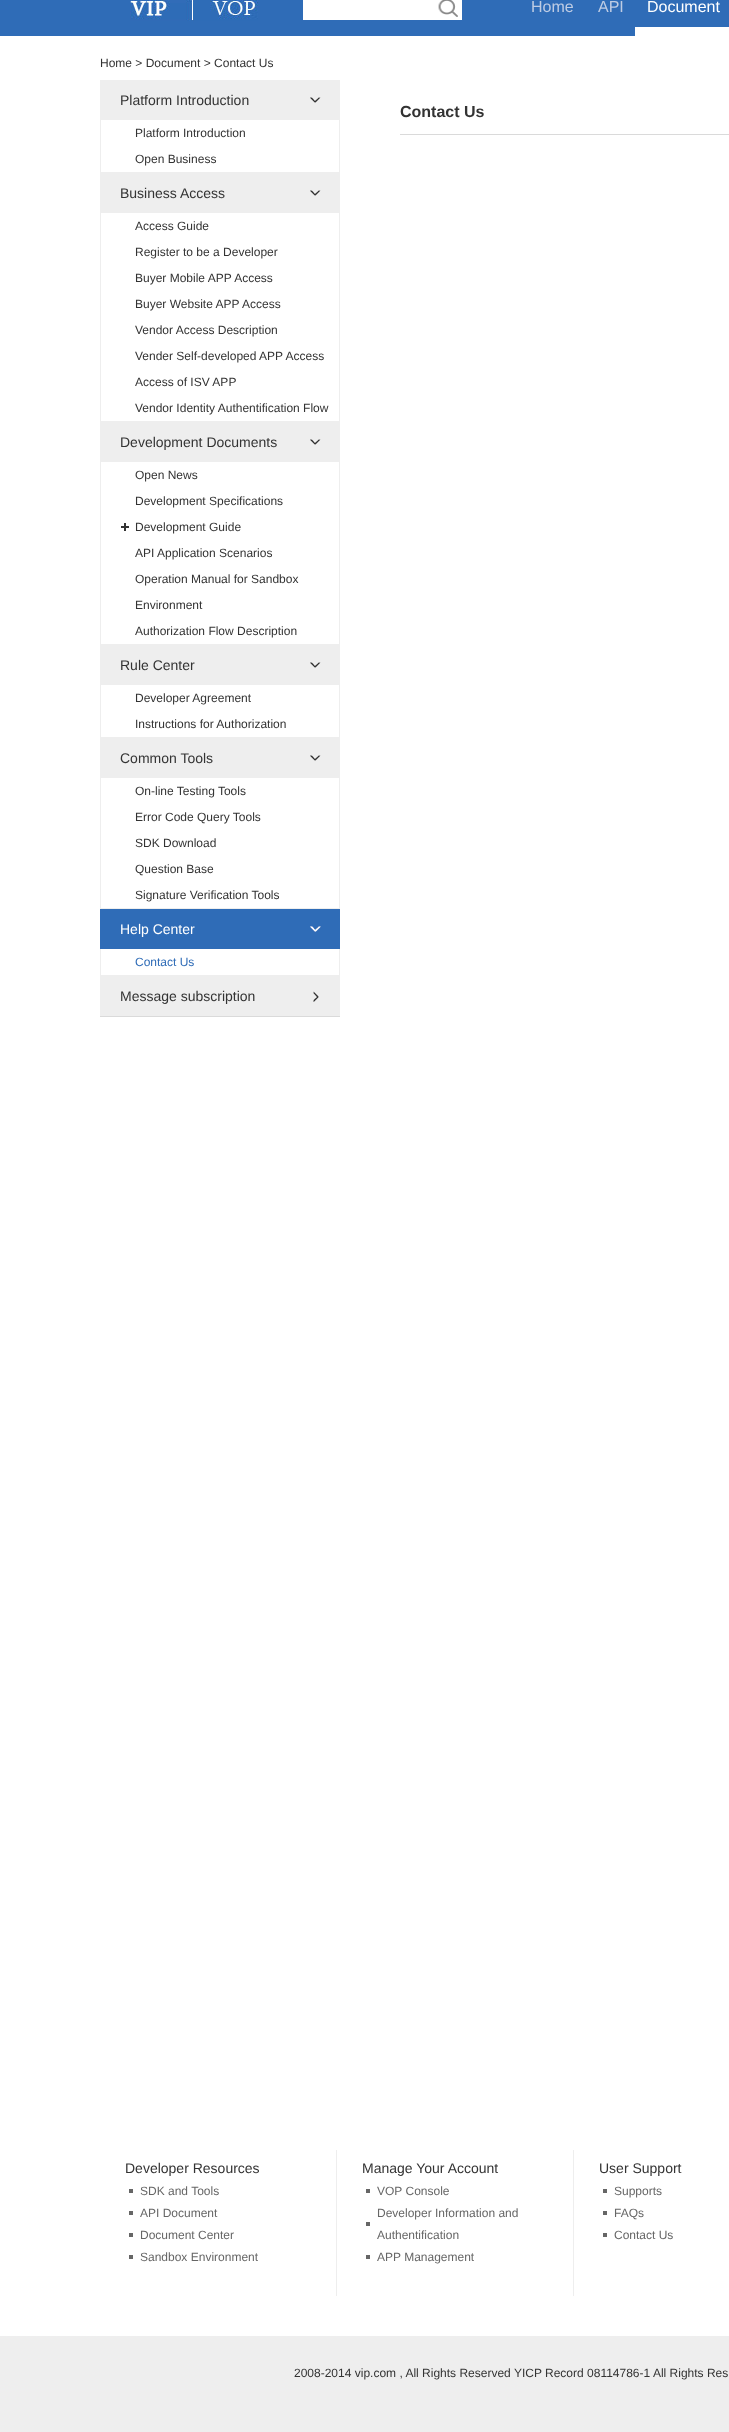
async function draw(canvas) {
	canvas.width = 729;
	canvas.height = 2432;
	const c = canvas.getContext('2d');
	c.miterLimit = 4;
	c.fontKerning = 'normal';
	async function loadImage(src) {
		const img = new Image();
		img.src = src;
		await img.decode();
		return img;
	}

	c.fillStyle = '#fff';
	c.fillRect(0, 0, 729, 2432);
	c.fillStyle = '#2f6cb7';
	c.fillRect(0, 0, 729, 36);
	c.drawImage(await loadImage('img1.png'), 130, 0, 128, 21);
	c.fillStyle = '#fff';
	c.fillRect(303, 0, 159, 20);
	c.drawImage(await loadImage('img2.png'), 438, 0, 20, 17);
	c.font = '16px Liberation Sans';
	c.fillStyle = '#becce4';
	c.fillText('Home', 531, 12);
	c.fillText('API', 598, 12);
	c.fillStyle = '#fff';
	c.fillRect(635, 27, 94, 9);
	c.fillText('Document', 647, 12);
	c.font = '12px Liberation Sans';
	c.fillStyle = '#333';
	c.fillText('Home > Document > Contact Us', 100, 67);
	c.fillStyle = '#eee';
	c.fillRect(100, 80, 240, 40);
	c.drawImage(await loadImage('img3.png'), 310, 97, 11, 6);
	c.font = '14px Liberation Sans';
	c.fillStyle = '#333';
	c.fillText('Platform Introduction', 120, 105);
	for (const [x, y, w, h, color] of [
		[339, 120, 1, 53, '#eee'],
		[100, 172, 240, 41, '#eee'],
		[100, 120, 1, 53, '#eee'],
	]) {
		c.fillStyle = color;
		c.fillRect(x, y, w, h);
	}
	c.font = '12px Liberation Sans';
	c.fillStyle = '#333';
	c.fillText('Platform Introduction', 135, 137);
	c.fillText('Open Business', 135, 163);
	c.drawImage(await loadImage('img3.png'), 310, 190, 11, 6);
	c.font = '14px Liberation Sans';
	c.fillText('Business Access', 120, 198);
	for (const [x, y, w, h, color] of [
		[339, 213, 1, 209, '#eee'],
		[100, 421, 240, 41, '#eee'],
		[100, 213, 1, 209, '#eee'],
	]) {
		c.fillStyle = color;
		c.fillRect(x, y, w, h);
	}
	c.font = '12px Liberation Sans';
	c.fillStyle = '#333';
	for (const [text, x, y] of [
		['Access Guide', 135, 230],
		['Register to be a Developer', 135, 256],
		['Buyer Mobile APP Access', 135, 282],
		['Buyer Website APP Access', 135, 308],
		['Vendor Access Description', 135, 334],
		['Vender Self-developed APP Access', 135, 360],
		['Access of ISV APP', 135, 386],
		['Vendor Identity Authentification Flow', 135, 412],
	]) {
		c.fillText(text, x, y);
	}
	c.drawImage(await loadImage('img3.png'), 310, 439, 11, 6);
	c.font = '14px Liberation Sans';
	c.fillText('Development Documents', 120, 447);
	for (const [x, y, w, h, color] of [
		[339, 462, 1, 183, '#eee'],
		[100, 644, 240, 41, '#eee'],
		[100, 462, 1, 183, '#eee'],
	]) {
		c.fillStyle = color;
		c.fillRect(x, y, w, h);
	}
	c.font = '12px Liberation Sans';
	c.fillStyle = '#333';
	c.fillText('Open News', 135, 479);
	c.fillText('Development Specifications', 135, 505);
	c.drawImage(await loadImage('img4.png'), 121, 523, 8, 8);
	for (const [text, x, y] of [
		['Development Guide', 135, 531],
		['API Application Scenarios', 135, 557],
		['Operation Manual for Sandbox', 135, 583],
		['Environment', 135, 609],
		['Authorization Flow Description', 135, 635],
	]) {
		c.fillText(text, x, y);
	}
	c.drawImage(await loadImage('img3.png'), 310, 662, 11, 6);
	c.font = '14px Liberation Sans';
	c.fillText('Rule Center', 120, 670);
	for (const [x, y, w, h, color] of [
		[339, 685, 1, 53, '#eee'],
		[100, 737, 240, 41, '#eee'],
		[100, 685, 1, 53, '#eee'],
	]) {
		c.fillStyle = color;
		c.fillRect(x, y, w, h);
	}
	c.font = '12px Liberation Sans';
	c.fillStyle = '#333';
	c.fillText('Developer Agreement', 135, 702);
	c.fillText('Instructions for Authorization', 135, 728);
	c.drawImage(await loadImage('img3.png'), 310, 755, 11, 6);
	c.font = '14px Liberation Sans';
	c.fillText('Common Tools', 120, 763);
	for (const [x, y, w, h, color] of [
		[339, 778, 1, 131, '#eee'],
		[100, 908, 240, 1, '#eee'],
		[100, 778, 1, 131, '#eee'],
	]) {
		c.fillStyle = color;
		c.fillRect(x, y, w, h);
	}
	c.font = '12px Liberation Sans';
	c.fillStyle = '#333';
	for (const [text, x, y] of [
		['On-line Testing Tools', 135, 795],
		['Error Code Query Tools', 135, 821],
		['SDK Download', 135, 847],
		['Question Base', 135, 873],
		['Signature Verification Tools', 135, 899],
	]) {
		c.fillText(text, x, y);
	}
	c.fillStyle = '#2f6cb7';
	c.fillRect(100, 909, 240, 40);
	c.drawImage(await loadImage('img5.png'), 310, 926, 11, 6);
	c.font = '14px Liberation Sans';
	c.fillStyle = '#fff';
	c.fillText('Help Center', 120, 934);
	for (const [x, y, w, h, color] of [
		[339, 949, 1, 27, '#eee'],
		[100, 975, 240, 41, '#eee'],
		[100, 949, 1, 27, '#eee'],
	]) {
		c.fillStyle = color;
		c.fillRect(x, y, w, h);
	}
	c.font = '12px Liberation Sans';
	c.fillStyle = '#2f6cb7';
	c.fillText('Contact Us', 135, 966);
	c.drawImage(await loadImage('img6.png'), 313, 991, 6, 11);
	c.fillStyle = '#dadada';
	c.fillRect(100, 1016, 240, 1);
	c.font = '14px Liberation Sans';
	c.fillStyle = '#333';
	c.fillText('Message subscription', 120, 1001);
	c.fillStyle = '#dadada';
	c.fillRect(400, 134, 329, 1);
	c.font = 'bold 16px Liberation Sans';
	c.fillStyle = '#333';
	c.fillText('Contact Us', 400, 117);
	c.font = '14px Liberation Sans';
	c.fillText('Developer Resources', 125, 2173);
	c.fillStyle = '#666';
	c.fillRect(129, 2189, 4, 4);
	c.font = '12px Liberation Sans';
	c.fillText('SDK and Tools', 140, 2195);
	c.fillRect(129, 2211, 4, 4);
	c.fillText('API Document', 140, 2217);
	c.fillRect(129, 2233, 4, 4);
	c.fillText('Document Center', 140, 2239);
	c.fillRect(129, 2255, 4, 4);
	c.fillText('Sandbox Environment', 140, 2261);
	c.fillStyle = '#eee';
	c.fillRect(336, 2150, 1, 146);
	c.font = '14px Liberation Sans';
	c.fillStyle = '#333';
	c.fillText('Manage Your Account', 362, 2173);
	c.fillStyle = '#666';
	c.fillRect(366, 2189, 4, 4);
	c.font = '12px Liberation Sans';
	c.fillText('VOP Console', 377, 2195);
	c.fillRect(366, 2222, 4, 4);
	c.fillText('Developer Information and', 377, 2217);
	c.fillText('Authentification', 377, 2239);
	c.fillRect(366, 2255, 4, 4);
	c.fillText('APP Management', 377, 2261);
	c.fillStyle = '#eee';
	c.fillRect(573, 2150, 1, 146);
	c.font = '14px Liberation Sans';
	c.fillStyle = '#333';
	c.fillText('User Support', 599, 2173);
	c.fillStyle = '#666';
	c.fillRect(603, 2189, 4, 4);
	c.font = '12px Liberation Sans';
	c.fillText('Supports', 614, 2195);
	c.fillRect(603, 2211, 4, 4);
	c.fillText('FAQs', 614, 2217);
	c.fillRect(603, 2233, 4, 4);
	c.fillText('Contact Us', 614, 2239);
	c.fillStyle = '#eee';
	c.fillRect(0, 2336, 729, 96);
	c.fillStyle = '#333';
	c.fillText('2008-2014 vip.com , All Rights Reserved YICP Record 08114786-1 All Rights Res', 294, 2377);
}

draw(document.querySelector('canvas'));
